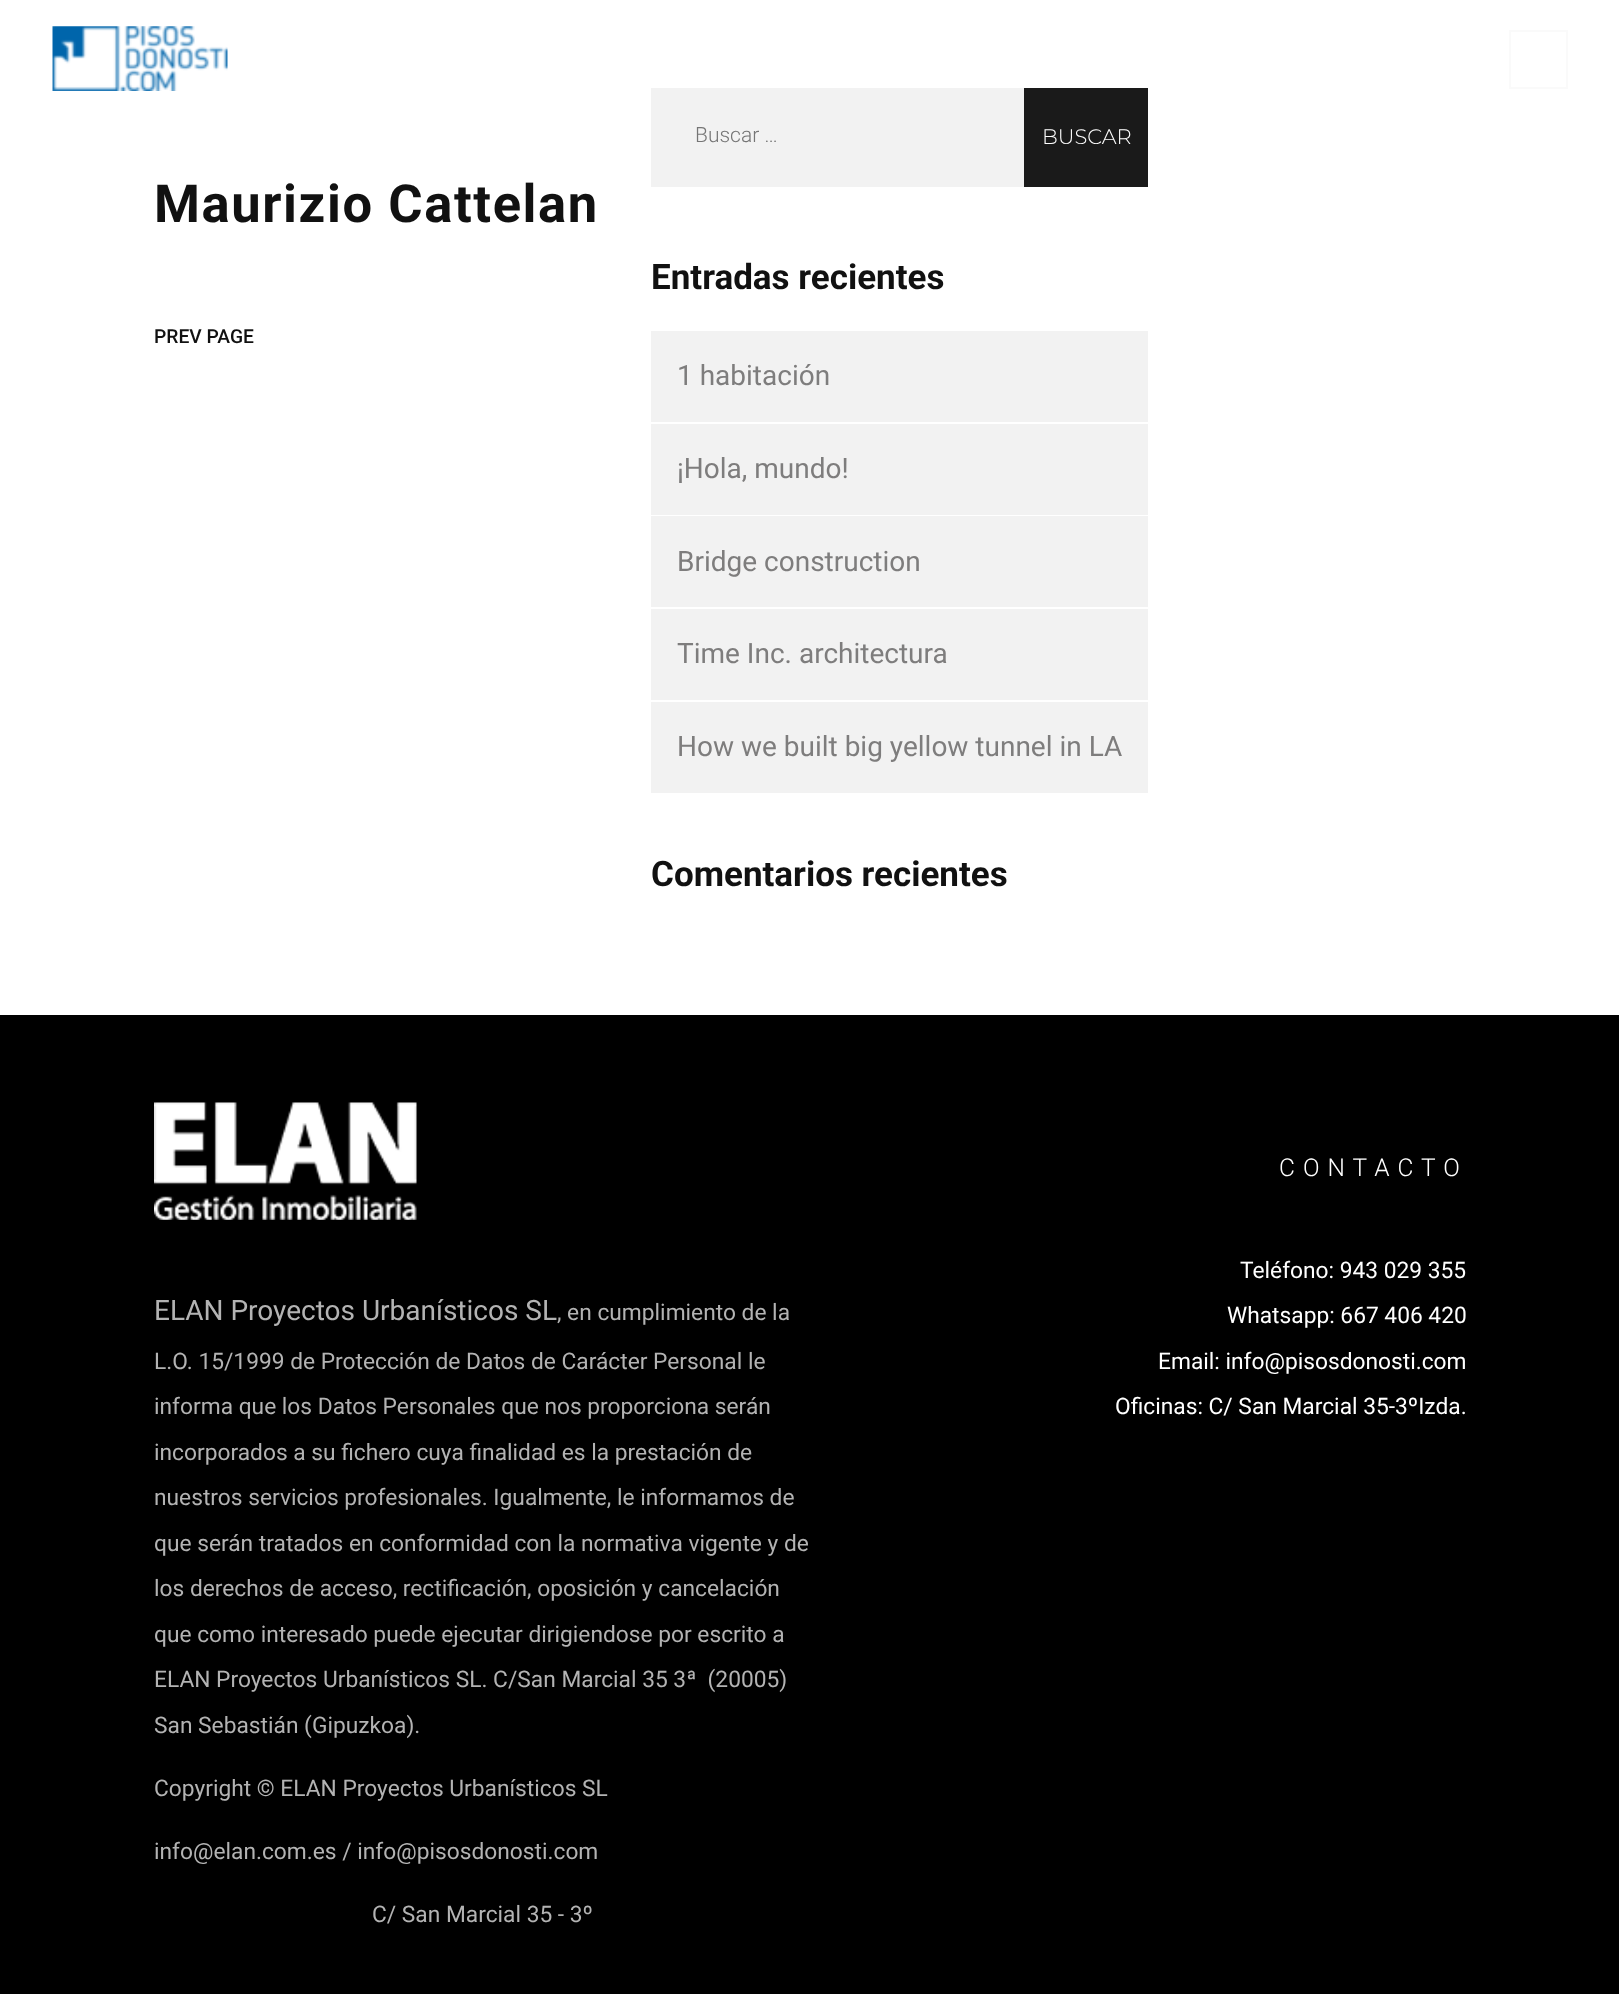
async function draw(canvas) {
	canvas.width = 1619;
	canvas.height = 1994;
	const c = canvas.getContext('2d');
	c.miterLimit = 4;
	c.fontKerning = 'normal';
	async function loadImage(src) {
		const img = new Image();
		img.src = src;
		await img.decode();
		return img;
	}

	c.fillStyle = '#fff';
	c.fillRect(0, 0, 1619, 1994);
	c.drawImage(await loadImage('img1.png'), 52, 26, 176, 65);
	c.strokeStyle = '#fafafa';
	c.lineWidth = 2;
	c.strokeRect(1510, 31, 57, 57);
	c.letterSpacing = '1.6px';
	c.font = 'bold 52.5px Roboto';
	c.fillStyle = '#111';
	c.fillText('Maurizio Cattelan', 154, 222);
	c.letterSpacing = '0px';
	c.font = '500 19.25px Roboto';
	c.fillText('PREV PAGE', 154, 343);
	c.fillStyle = '#f2f2f2';
	c.fillRect(651, 88, 373, 99);
	c.font = '300 21px Roboto';
	c.fillStyle = '#757575';
	c.fillText('Buscar …', 695, 142);
	c.fillStyle = '#1a1a1a';
	c.fillRect(1024, 88, 124, 99);
	c.font = '300 21px Montserrat';
	c.fillStyle = '#fff';
	c.fillText('BUSCAR', 1042, 144);
	c.font = 'bold 35px Roboto';
	c.fillStyle = '#111';
	c.fillText('Entradas recientes', 651, 289);
	c.fillStyle = '#f2f2f2';
	c.fillRect(651, 331, 497, 91);
	c.font = '28px Roboto';
	c.fillStyle = '#7e7d7d';
	c.fillText('1 habitación', 677, 385);
	c.fillStyle = '#f2f2f2';
	c.fillRect(651, 424, 497, 91);
	c.fillStyle = '#7e7d7d';
	c.fillText('¡Hola, mundo!', 677, 478);
	c.fillStyle = '#f2f2f2';
	c.fillRect(651, 516, 497, 91);
	c.fillStyle = '#7e7d7d';
	c.fillText('Bridge construction', 677, 571);
	c.fillStyle = '#f2f2f2';
	c.fillRect(651, 609, 497, 91);
	c.fillStyle = '#7e7d7d';
	c.fillText('Time Inc. architectura', 677, 663);
	c.fillStyle = '#f2f2f2';
	c.fillRect(651, 702, 497, 91);
	c.fillStyle = '#7e7d7d';
	c.fillText('How we built big yellow tunnel in LA', 677, 756);
	c.font = 'bold 35px Roboto';
	c.fillStyle = '#111';
	c.fillText('Comentarios recientes', 651, 886);
	c.fillStyle = '#000';
	c.fillRect(0, 1015, 1619, 979);
	c.drawImage(await loadImage('img2.png'), 154, 1102, 263, 118);
	c.font = '28px Roboto';
	c.fillStyle = '#b3b3b3';
	c.fillText('ELAN Proyectos Urbanísticos SL', 154, 1320);
	c.font = '22.75px Roboto';
	for (const [text, x, y] of [
		[', en cumplimiento de la', 557, 1320],
		['L.O. 15/1999 de Protección de Datos de Carácter Personal le', 154, 1369],
		['informa que los Datos Personales que nos proporciona serán', 154, 1414],
		['incorporados a su fichero cuya finalidad es la prestación de', 154, 1460],
		['nuestros servicios profesionales. Igualmente, le informamos de', 154, 1505],
		['que serán tratados en conformidad con la normativa vigente y de', 154, 1551],
		['los derechos de acceso, rectificación, oposición y cancelación', 154, 1596],
		['que como interesado puede ejecutar dirigiendose por escrito a', 154, 1642],
		['ELAN Proyectos Urbanísticos SL. C/San Marcial 35 3ª  (20005)', 154, 1687],
		['San Sebastián (Gipuzkoa).', 154, 1733],
		['Copyright © ELAN Proyectos Urbanísticos SL', 154, 1796],
		['info@elan.com.es / info@pisosdonosti.com', 154, 1859],
		['C/ San Marcial 35 - 3º', 372, 1922],
	]) {
		c.fillText(text, x, y);
	}
	c.letterSpacing = '8px';
	c.font = '300 24.5px Roboto';
	c.fillStyle = '#fff';
	c.fillText('CONTACTO', 1279, 1176);
	c.letterSpacing = '0px';
	c.font = '22.75px Roboto';
	for (const [text, x, y] of [
		['Teléfono: 943 029 355', 1240, 1278],
		['Whatsapp: 667 406 420', 1227, 1323],
		['Email: info@pisosdonosti.com', 1158, 1369],
		['Oficinas: C/ San Marcial 35-3ºIzda.', 1115, 1414],
	]) {
		c.fillText(text, x, y);
	}
}

draw(document.querySelector('canvas'));
